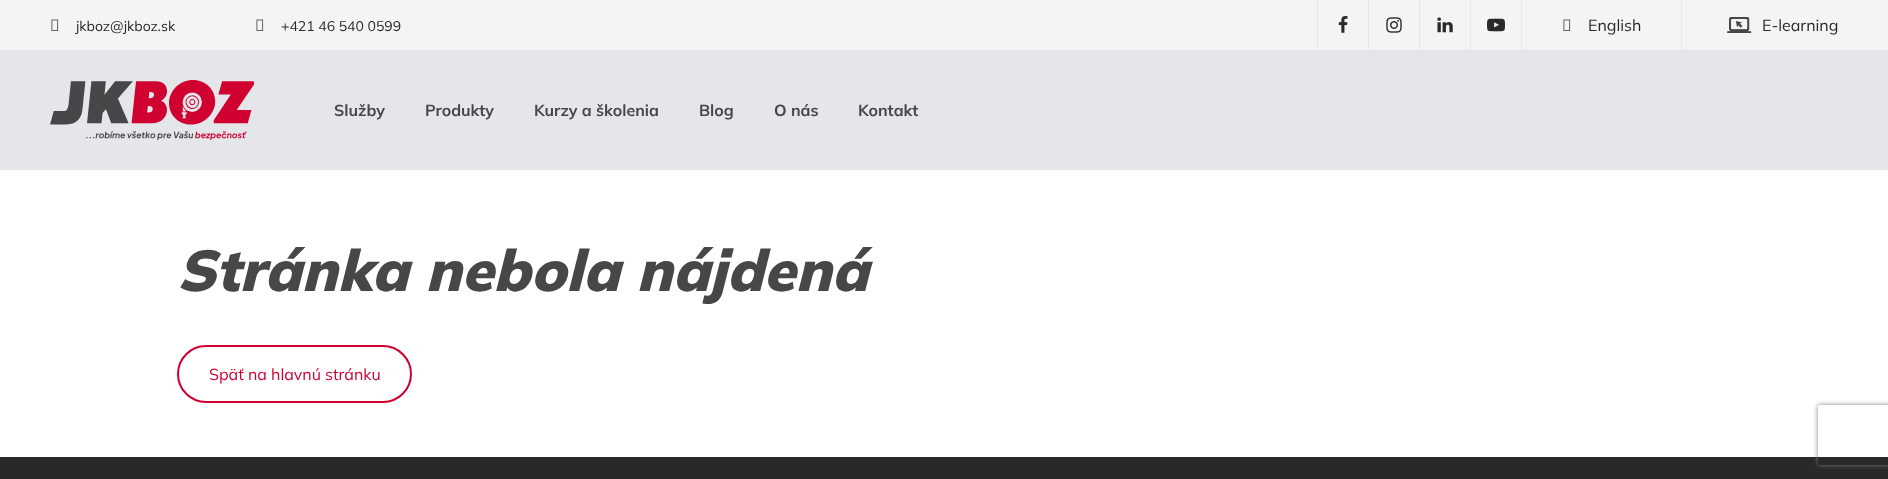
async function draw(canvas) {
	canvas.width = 1888;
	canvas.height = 479;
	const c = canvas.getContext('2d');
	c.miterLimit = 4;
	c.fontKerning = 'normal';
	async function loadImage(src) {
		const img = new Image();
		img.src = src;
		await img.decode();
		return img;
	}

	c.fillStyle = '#fff';
	c.fillRect(0, 0, 1888, 479);
	c.fillStyle = '#f4f4f5';
	c.fillRect(0, 0, 1888, 50);
	c.drawImage(await loadImage('img1.png'), 51, 19, 8, 12);
	c.font = '14px Mulish';
	c.fillStyle = '#292929';
	c.fillText('jkboz@jkboz.sk', 76, 31);
	c.drawImage(await loadImage('img1.png'), 256, 19, 8, 12);
	c.fillText('+421 46 540 0599', 281, 31);
	c.fillStyle = '#e4e6ea';
	c.fillRect(1368, 0, 1, 50);
	c.fillRect(1317, 0, 1, 50);
	c.drawImage(await loadImage('img2.png'), 1338, 16, 10, 17);
	c.fillRect(1419, 0, 1, 50);
	c.drawImage(await loadImage('img3.png'), 1386, 17, 16, 16);
	c.fillRect(1470, 0, 1, 50);
	c.drawImage(await loadImage('img4.png'), 1437, 17, 16, 16);
	c.fillRect(1521, 0, 1, 50);
	c.drawImage(await loadImage('img5.png'), 1487, 18, 18, 14);
	c.fillRect(1681, 0, 1, 50);
	c.drawImage(await loadImage('img1.png'), 1563, 19, 8, 12);
	c.font = '16px Mulish';
	c.fillStyle = '#292929';
	c.fillText('English', 1588, 31);
	c.drawImage(await loadImage('img6.png'), 1727, 17, 25, 16);
	c.fillText('E-learning', 1762, 31);
	c.fillStyle = '#e4e6ea';
	c.fillRect(0, 50, 1888, 120);
	c.drawImage(await loadImage('img7.png'), 50, 80, 204, 60);
	c.font = 'bold 16px Mulish';
	c.fillStyle = '#464749';
	for (const [text, x, y] of [
		['Služby', 334, 116],
		['Produkty', 425, 116],
		['Kurzy a školenia', 534, 116],
		['Blog', 699, 116],
		['O nás', 774, 116],
		['Kontakt', 858, 116],
	]) {
		c.fillText(text, x, y);
	}
	c.font = 'italic 900 57.75px Mulish';
	c.fillText('Stránka nebola nájdená', 177, 291);
	c.beginPath();
	c.roundRect(178, 346, 233, 56, 28);
	c.strokeStyle = '#d00030';
	c.lineWidth = 2;
	c.stroke();
	c.font = '16px Mulish';
	c.fillStyle = '#d00030';
	c.fillText('Späť na hlavnú stránku', 209, 380);
	c.fillStyle = '#292929';
	c.fillRect(0, 457, 1888, 22);
	c.save();
	c.beginPath();
	c.moveTo(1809, 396);
	c.lineTo(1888, 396);
	c.lineTo(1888, 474);
	c.lineTo(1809, 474);
	c.closePath();
	c.moveTo(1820, 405);
	c.lineTo(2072, 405);
	c.bezierCurveTo(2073, 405, 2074, 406, 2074, 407);
	c.lineTo(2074, 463);
	c.bezierCurveTo(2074, 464, 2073, 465, 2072, 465);
	c.lineTo(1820, 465);
	c.bezierCurveTo(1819, 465, 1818, 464, 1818, 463);
	c.lineTo(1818, 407);
	c.bezierCurveTo(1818, 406, 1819, 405, 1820, 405);
	c.closePath();
	c.clip('evenodd');
	c.fillStyle = '#808080';
	c.filter = 'blur(2.5px)';
	c.beginPath();
	c.roundRect(1818, 405, 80, 60, 2);
	c.fill();
	c.filter = 'none';
	c.restore();
}

draw(document.querySelector('canvas'));
